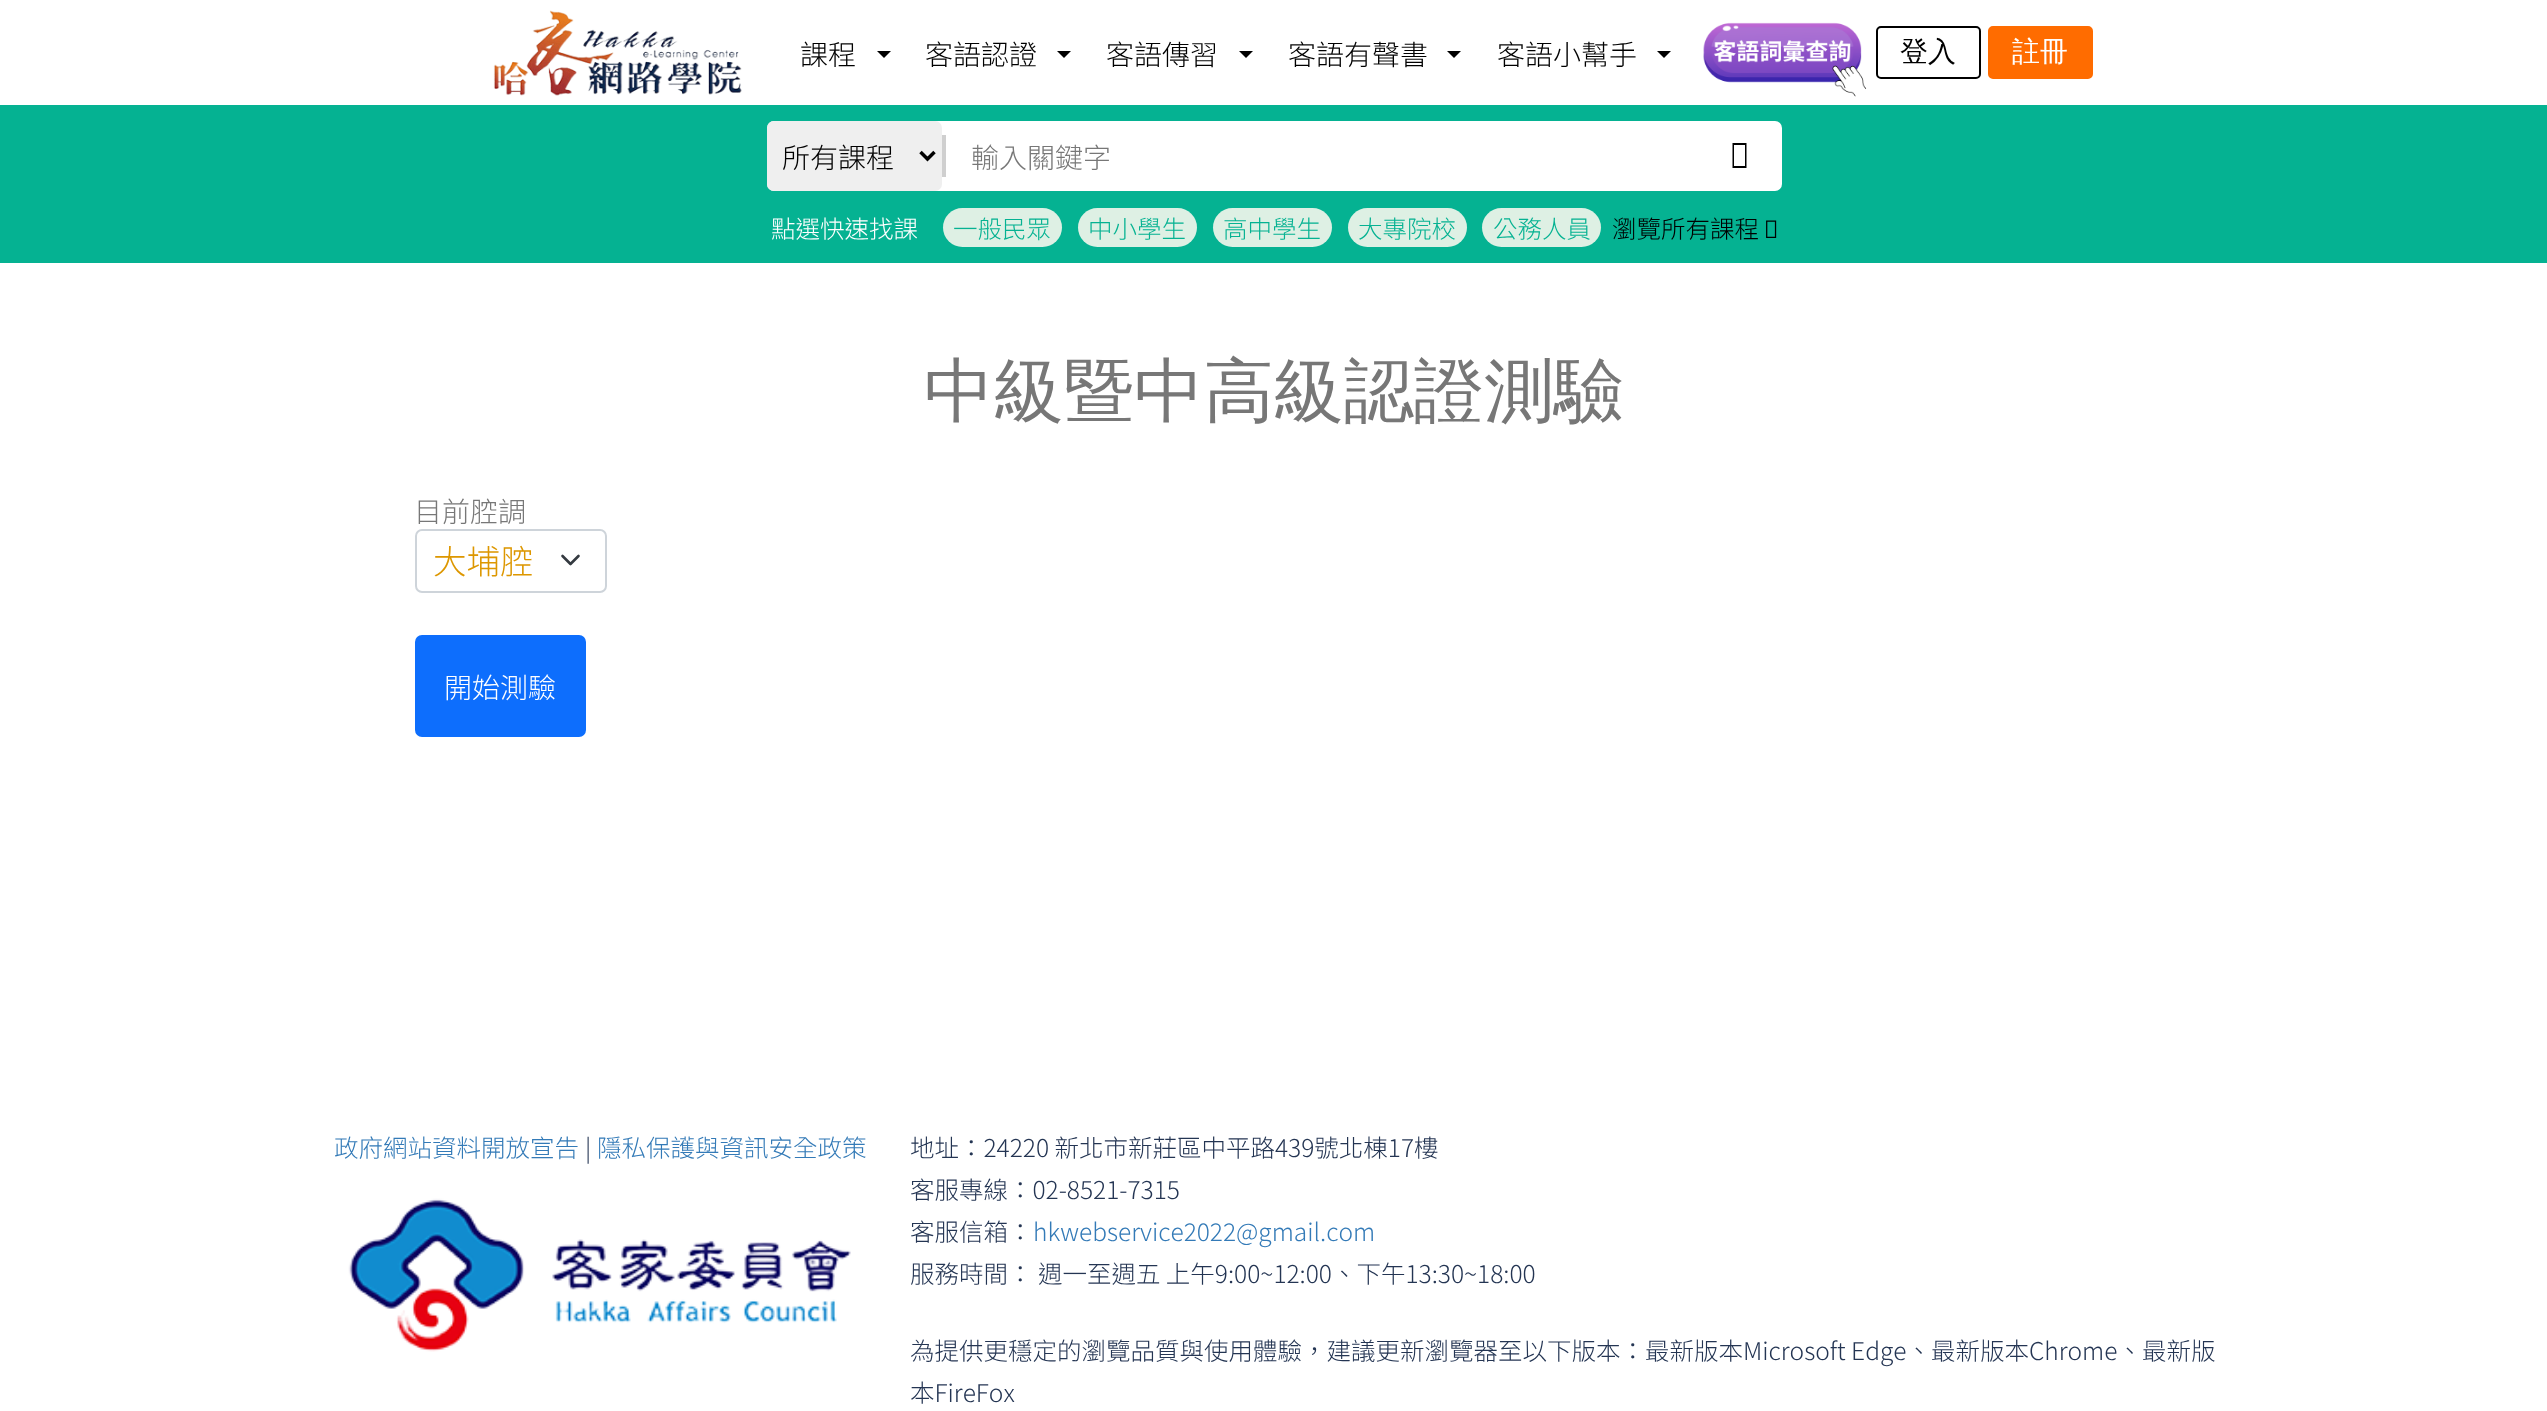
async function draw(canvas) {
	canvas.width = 2547;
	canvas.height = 1411;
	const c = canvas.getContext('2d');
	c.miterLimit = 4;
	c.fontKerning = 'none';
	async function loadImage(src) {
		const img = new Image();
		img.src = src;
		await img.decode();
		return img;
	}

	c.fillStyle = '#fff';
	c.fillRect(0, 0, 2547, 1411);
	c.drawImage(await loadImage('img1.png'), 493, 10, 249, 86);
	c.font = '900 28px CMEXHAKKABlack';
	c.fillStyle = '#000';
	c.fillText('課程', 800, 65);
	c.beginPath();
	c.moveTo(877, 51);
	c.lineTo(891, 51);
	c.lineTo(884, 58);
	c.closePath();
	c.fill();
	c.fillText('客語認證', 925, 65);
	c.beginPath();
	c.moveTo(1057, 51);
	c.lineTo(1071, 51);
	c.lineTo(1064, 58);
	c.closePath();
	c.fill();
	c.fillText('客語傳習', 1106, 65);
	c.beginPath();
	c.moveTo(1239, 51);
	c.lineTo(1253, 51);
	c.lineTo(1246, 58);
	c.closePath();
	c.fill();
	c.fillText('客語有聲書', 1288, 65);
	c.beginPath();
	c.moveTo(1447, 51);
	c.lineTo(1461, 51);
	c.lineTo(1454, 58);
	c.closePath();
	c.fill();
	c.fillText('客語小幫手', 1497, 65);
	c.beginPath();
	c.moveTo(1657, 51);
	c.lineTo(1671, 51);
	c.lineTo(1664, 58);
	c.closePath();
	c.fill();
	c.drawImage(await loadImage('img2.png'), 1703, 22, 164, 75);
	c.beginPath();
	c.roundRect(1877, 27, 103, 51, 4);
	c.strokeStyle = '#000';
	c.lineWidth = 2;
	c.stroke();
	c.font = '500 28px WenQuanYi Zen Hei';
	c.fillText('登入', 1900, 61);
	c.fillStyle = '#ff6c00';
	c.beginPath();
	c.roundRect(1989, 27, 103, 51, 4);
	c.fill();
	c.strokeStyle = '#ff6c00';
	c.stroke();
	c.fillStyle = '#fff';
	c.fillText('註冊', 2012, 61);
	c.fillStyle = '#05b292';
	c.fillRect(0, 105, 2547, 158);
	c.fillStyle = '#fff';
	c.beginPath();
	c.roundRect(767, 121, 1015, 70, 7);
	c.fill();
	c.fillStyle = '#efefef';
	c.beginPath();
	c.roundRect(767, 121, 175, 70, 7);
	c.fill();
	c.beginPath();
	c.moveTo(920.5, 152);
	c.lineTo(927.5, 159);
	c.lineTo(934.5, 152);
	c.strokeStyle = '#000';
	c.lineWidth = 3.5;
	c.stroke();
	c.font = '900 28px CMEXHAKKABlack';
	c.fillStyle = '#000';
	c.fillText('所有課程', 782, 168);
	c.fillStyle = '#cfcfcf';
	c.fillRect(942, 135, 4, 42);
	c.fillStyle = '#777';
	c.fillText('輸入關鍵字', 971, 168);
	c.fillStyle = '#000';
	c.beginPath();
	c.moveTo(1732.5, 168);
	c.lineTo(1732.5, 143);
	c.lineTo(1746.5, 143);
	c.lineTo(1746.5, 168);
	c.closePath();
	c.moveTo(1734, 166);
	c.lineTo(1745, 166);
	c.lineTo(1745, 145);
	c.lineTo(1734, 145);
	c.closePath();
	c.fill();
	c.font = '900 24.5px CMEXHAKKABlack';
	c.fillStyle = '#fff';
	c.fillText('點選快速找課', 771, 238);
	c.fillStyle = '#def0e4';
	c.beginPath();
	c.roundRect(943, 208, 119, 39, 19.5);
	c.fill();
	c.fillStyle = '#05b292';
	c.fillText('一般民眾', 953, 238);
	c.fillStyle = '#def0e4';
	c.beginPath();
	c.roundRect(1078, 208, 119, 39, 19.5);
	c.fill();
	c.fillStyle = '#05b292';
	c.fillText('中小學生', 1088, 238);
	c.fillStyle = '#def0e4';
	c.beginPath();
	c.roundRect(1213, 208, 119, 39, 19.5);
	c.fill();
	c.fillStyle = '#05b292';
	c.fillText('高中學生', 1223, 238);
	c.fillStyle = '#def0e4';
	c.beginPath();
	c.roundRect(1348, 208, 119, 39, 19.5);
	c.fill();
	c.fillStyle = '#05b292';
	c.fillText('大專院校', 1358, 238);
	c.fillStyle = '#def0e4';
	c.beginPath();
	c.roundRect(1482, 208, 119, 39, 19.5);
	c.fill();
	c.fillStyle = '#05b292';
	c.fillText('公務人員', 1493, 238);
	c.fillStyle = '#000';
	c.fillText('瀏覽所有課程', 1612, 238);
	c.drawImage(await loadImage('img3.png'), 1766, 220, 11, 18);
	c.font = '500 70px WenQuanYi Zen Hei';
	c.fillStyle = '#777';
	c.fillText('中級暨中高級認證測驗', 924, 415);
	c.font = '900 28px CMEXHAKKABlack';
	c.fillText('目前腔調', 414, 522);
	c.beginPath();
	c.moveTo(562.5, 556);
	c.lineTo(570.5, 564);
	c.lineTo(578.5, 556);
	c.strokeStyle = '#343a40';
	c.lineWidth = 2.6;
	c.lineCap = 'round';
	c.lineJoin = 'round';
	c.stroke();
	c.beginPath();
	c.roundRect(416, 530, 190, 62, 6);
	c.strokeStyle = '#ced4da';
	c.lineWidth = 2;
	c.lineJoin = 'miter';
	c.stroke();
	c.font = '900 33.5px CMEXHAKKABlack';
	c.fillStyle = '#dd9700';
	c.fillText('大埔腔', 433, 574);
	c.fillStyle = '#0d6efd';
	c.beginPath();
	c.roundRect(416, 636, 169, 100, 6);
	c.fill();
	c.strokeStyle = '#0d6efd';
	c.stroke();
	c.font = '900 28px CMEXHAKKABlack';
	c.fillStyle = '#fff';
	c.fillText('開始測驗', 444, 698);
	c.font = '900 24.5px CMEXHAKKABlack';
	c.fillStyle = '#337ab7';
	c.fillText('政府網站資料開放宣告', 334, 1157);
	c.fillStyle = '#243553';
	c.fillText('|', 585, 1157);
	c.fillStyle = '#337ab7';
	c.fillText('隱私保護與資訊安全政策', 597, 1157);
	c.drawImage(await loadImage('img4.png'), 348, 1198, 503, 154);
	c.fillStyle = '#243553';
	for (const [text, x, y] of [
		['地址：24220 新北市新莊區中平路439號北棟17樓', 910, 1157],
		['客服專線：02-8521-7315', 910, 1199],
		['客服信箱：', 910, 1241],
	]) {
		c.fillText(text, x, y);
	}
	c.fillStyle = '#337ab7';
	c.fillText('hkwebservice2022@gmail.com', 1033, 1241);
	c.fillStyle = '#243553';
	for (const [text, x, y] of [
		['服務時間： 週一至週五 上午9:00~12:00、下午13:30~18:00', 910, 1283],
		['為提供更穩定的瀏覽品質與使用體驗，建議更新瀏覽器至以下版本：最新版本Microsoft Edge、最新版本Chrome、最新版', 910, 1360],
		['本FireFox', 910, 1402],
	]) {
		c.fillText(text, x, y);
	}
}

draw(document.querySelector('canvas'));
